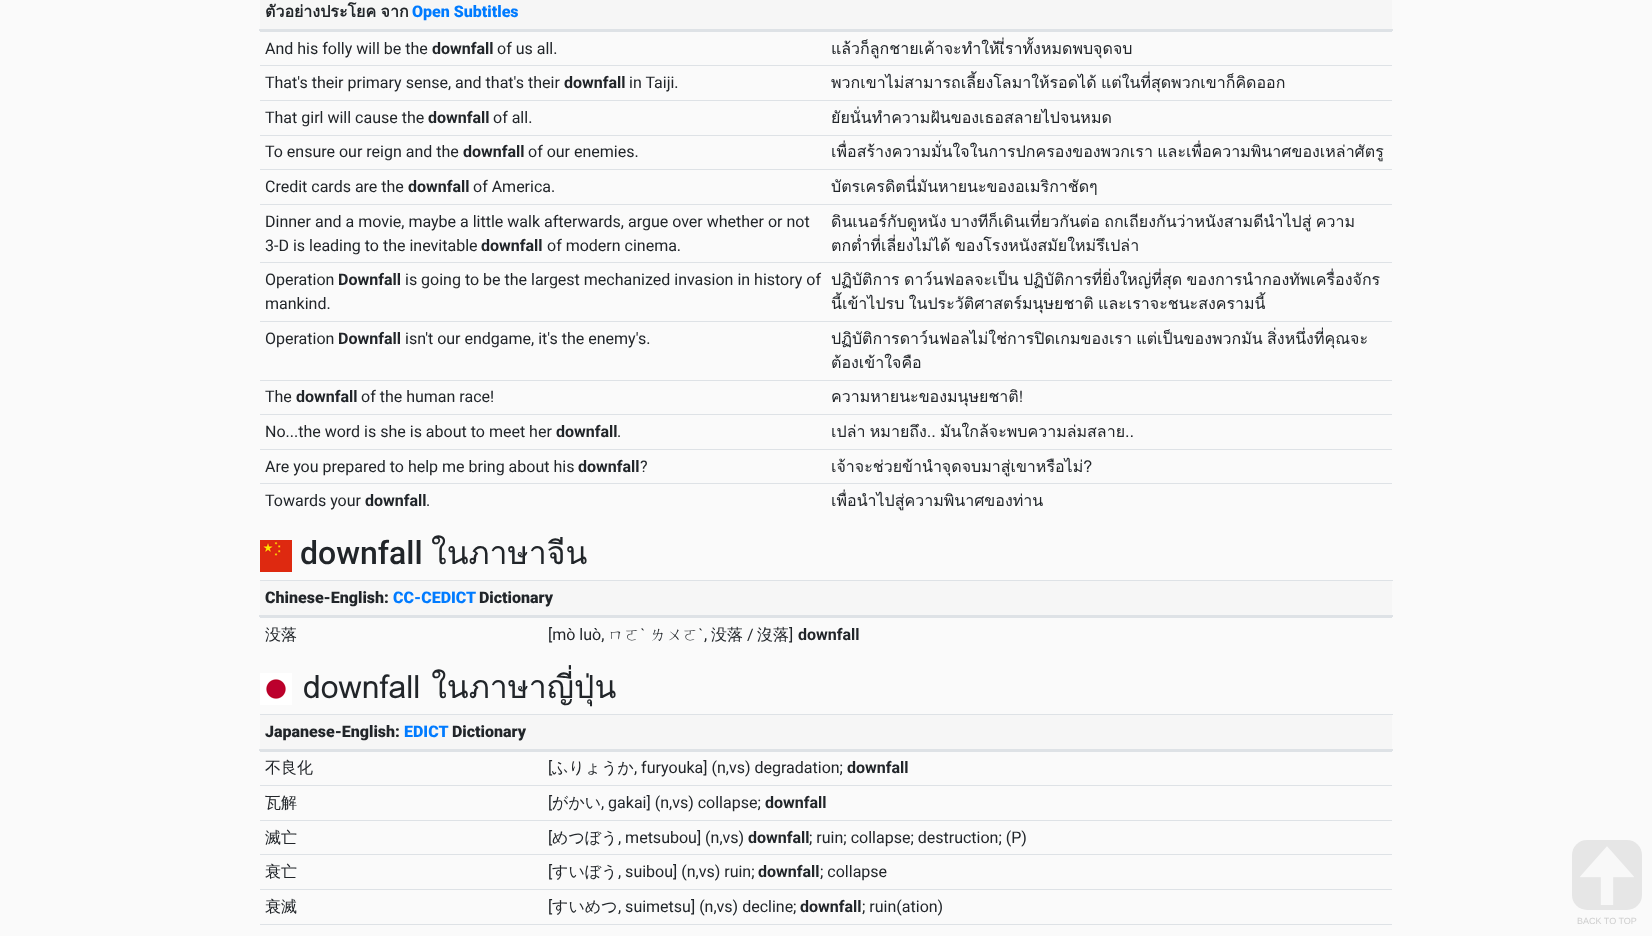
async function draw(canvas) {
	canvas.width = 1652;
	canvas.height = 936;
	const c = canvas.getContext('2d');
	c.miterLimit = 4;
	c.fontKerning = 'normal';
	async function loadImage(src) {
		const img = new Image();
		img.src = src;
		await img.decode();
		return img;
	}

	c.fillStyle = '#fafafa';
	c.fillRect(0, 0, 1652, 936);
	c.fillStyle = '#f6f6f6';
	c.fillRect(260, 0, 1132, 29);
	c.fillStyle = '#dee2e6';
	c.fillRect(259, 29, 1134, 2);
	c.wordSpacing = '-1px';
	c.font = 'bold 16px Loma';
	c.fillStyle = '#212529';
	c.fillText('ตัวอย่างประโยค จาก', 265, 17);
	c.wordSpacing = '0px';
	c.font = '900 16px Roboto';
	c.fillStyle = '#007bff';
	c.fillText('Open Subtitles', 412, 17);
	c.fillStyle = '#dee2e6';
	c.fillRect(260, 31, 1132, 1);
	c.font = '16px Roboto';
	c.fillStyle = '#212529';
	c.fillText('And his folly will be the', 265, 54);
	c.font = 'bold 16px Roboto';
	c.fillText('downfall', 432, 54);
	c.font = '16px Roboto';
	c.fillText('of us all.', 497, 54);
	c.font = '16px Loma';
	c.fillText('แล้วก็ลูกชายเค้าจะทำให้เี่ราทั้งหมดพบจุดจบ', 831, 54);
	c.fillStyle = '#dee2e6';
	c.fillRect(260, 65, 1132, 1);
	c.font = '16px Roboto';
	c.fillStyle = '#212529';
	c.fillText('That\'s their primary sense, and that\'s their', 265, 88);
	c.font = 'bold 16px Roboto';
	c.fillText('downfall', 564, 88);
	c.font = '16px Roboto';
	c.fillText('in Taiji.', 629, 88);
	c.wordSpacing = '-1px';
	c.font = '16px Loma';
	c.fillText('พวกเขาไม่สามารถเลี้ยงโลมาให้รอดได้ แต่ในที่สุดพวกเขาก็คิดออก', 831, 88);
	c.fillStyle = '#dee2e6';
	c.fillRect(260, 100, 1132, 1);
	c.wordSpacing = '0px';
	c.font = '16px Roboto';
	c.fillStyle = '#212529';
	c.fillText('That girl will cause the', 265, 123);
	c.font = 'bold 16px Roboto';
	c.fillText('downfall', 428, 123);
	c.font = '16px Roboto';
	c.fillText('of all.', 493, 123);
	c.font = '16px Loma';
	c.fillText('ยัยนั่นทำความฝันของเธอสลายไปจนหมด', 831, 123);
	c.fillStyle = '#dee2e6';
	c.fillRect(260, 135, 1132, 1);
	c.font = '16px Roboto';
	c.fillStyle = '#212529';
	c.fillText('To ensure our reign and the', 265, 157);
	c.font = 'bold 16px Roboto';
	c.fillText('downfall', 463, 157);
	c.font = '16px Roboto';
	c.fillText('of our enemies.', 528, 157);
	c.wordSpacing = '-1px';
	c.font = '16px Loma';
	c.fillText('เพื่อสร้างความมั่นใจในการปกครองของพวกเรา และเพื่อความพินาศของเหล่าศัตรู', 831, 157);
	c.fillStyle = '#dee2e6';
	c.fillRect(260, 169, 1132, 1);
	c.wordSpacing = '0px';
	c.font = '16px Roboto';
	c.fillStyle = '#212529';
	c.fillText('Credit cards are the', 265, 192);
	c.font = 'bold 16px Roboto';
	c.fillText('downfall', 408, 192);
	c.font = '16px Roboto';
	c.fillText('of America.', 473, 192);
	c.font = '16px Loma';
	c.fillText('บัตรเครดิตนี่มันหายนะของอเมริกาชัดๆ', 831, 192);
	c.fillStyle = '#dee2e6';
	c.fillRect(260, 204, 1132, 1);
	c.font = '16px Roboto';
	c.fillStyle = '#212529';
	c.fillText('Dinner and a movie, maybe a little walk afterwards, argue over whether or not', 265, 227);
	c.fillText('3-D is leading to the inevitable', 265, 251);
	c.font = 'bold 16px Roboto';
	c.fillText('downfall', 481, 251);
	c.font = '16px Roboto';
	c.fillText('of modern cinema.', 547, 251);
	c.wordSpacing = '-1px';
	c.font = '16px Loma';
	c.fillText('ดินเนอร์กับดูหนัง บางทีก็เดินเที่ยวกันต่อ ถกเถียงกันว่าหนังสามดีนำไปสู่ ความ', 831, 227);
	c.fillText('ตกต่ำที่เลี่ยงไม่ได้ ของโรงหนังสมัยใหม่รึเปล่า', 831, 251);
	c.fillStyle = '#dee2e6';
	c.fillRect(260, 262, 1132, 1);
	c.wordSpacing = '0px';
	c.font = '16px Roboto';
	c.fillStyle = '#212529';
	c.fillText('Operation', 265, 285);
	c.font = 'bold 16px Roboto';
	c.fillText('Downfall', 338, 285);
	c.font = '16px Roboto';
	c.fillText('is going to be the largest mechanized invasion in history of', 405, 285);
	c.fillText('mankind.', 265, 309);
	c.wordSpacing = '-1px';
	c.font = '16px Loma';
	c.fillText('ปฏิบัติการ ดาว์นฟอลจะเป็น ปฏิบัติการที่ยิ่งใหญ่ที่สุด ของการนำกองทัพเครื่องจักร', 831, 285);
	c.fillText('นี้เข้าไปรบ ในประวัติศาสตร์มนุษยชาติ และเราจะชนะสงครามนี้', 831, 309);
	c.fillStyle = '#dee2e6';
	c.fillRect(260, 321, 1132, 1);
	c.wordSpacing = '0px';
	c.font = '16px Roboto';
	c.fillStyle = '#212529';
	c.fillText('Operation', 265, 344);
	c.font = 'bold 16px Roboto';
	c.fillText('Downfall', 338, 344);
	c.font = '16px Roboto';
	c.fillText('isn\'t our endgame, it\'s the enemy\'s.', 405, 344);
	c.wordSpacing = '-1px';
	c.font = '16px Loma';
	c.fillText('ปฏิบัติการดาว์นฟอลไม่ใช่การปิดเกมของเรา แต่เป็นของพวกมัน สิ่งหนึ่งที่คุณจะ', 831, 344);
	c.wordSpacing = '0px';
	c.fillText('ต้องเข้าใจคือ', 831, 368);
	c.fillStyle = '#dee2e6';
	c.fillRect(260, 380, 1132, 1);
	c.font = '16px Roboto';
	c.fillStyle = '#212529';
	c.fillText('The', 265, 402);
	c.font = 'bold 16px Roboto';
	c.fillText('downfall', 296, 402);
	c.font = '16px Roboto';
	c.fillText('of the human race!', 361, 402);
	c.font = '16px Loma';
	c.fillText('ความหายนะของมนุษยชาติ!', 831, 402);
	c.fillStyle = '#dee2e6';
	c.fillRect(260, 414, 1132, 1);
	c.font = '16px Roboto';
	c.fillStyle = '#212529';
	c.fillText('No...the word is she is about to meet her', 265, 437);
	c.font = 'bold 16px Roboto';
	c.fillText('downfall', 556, 437);
	c.font = '16px Roboto';
	c.fillText('.', 617, 437);
	c.wordSpacing = '-1px';
	c.font = '16px Loma';
	c.fillText('เปล่า หมายถึง.. มันใกล้จะพบความล่มสลาย..', 831, 437);
	c.fillStyle = '#dee2e6';
	c.fillRect(260, 449, 1132, 1);
	c.wordSpacing = '0px';
	c.font = '16px Roboto';
	c.fillStyle = '#212529';
	c.fillText('Are you prepared to help me bring about his', 265, 472);
	c.font = 'bold 16px Roboto';
	c.fillText('downfall', 578, 472);
	c.font = '16px Roboto';
	c.fillText('?', 640, 472);
	c.font = '16px Loma';
	c.fillText('เจ้าจะช่วยข้านำจุดจบมาสู่เขาหรือไม่?', 831, 472);
	c.fillStyle = '#dee2e6';
	c.fillRect(260, 483, 1132, 1);
	c.font = '16px Roboto';
	c.fillStyle = '#212529';
	c.fillText('Towards your', 265, 506);
	c.font = 'bold 16px Roboto';
	c.fillText('downfall', 365, 506);
	c.font = '16px Roboto';
	c.fillText('.', 426, 506);
	c.font = '16px Loma';
	c.fillText('เพื่อนำไปสู่ความพินาศของท่าน', 831, 506);
	c.drawImage(await loadImage('img1.png'), 260, 540, 32, 32);
	c.font = '500 32px Roboto';
	c.fillText('downfall', 300, 564);
	c.font = '32px Loma';
	c.fillText('ในภาษาจีน', 431, 564);
	for (const [x, y, w, h, color] of [
		[260, 581, 1132, 34, '#f6f6f6'],
		[260, 580, 1133, 1, '#dee2e6'],
		[259, 615, 1134, 2, '#dee2e6'],
	]) {
		c.fillStyle = color;
		c.fillRect(x, y, w, h);
	}
	c.font = '900 16px Roboto';
	c.fillStyle = '#212529';
	c.fillText('Chinese-English:', 265, 603);
	c.fillStyle = '#007bff';
	c.fillText('CC-CEDICT', 393, 603);
	c.fillStyle = '#212529';
	c.fillText('Dictionary', 479, 603);
	c.fillStyle = '#dee2e6';
	c.fillRect(260, 617, 1132, 1);
	c.font = '500 16px WenQuanYi Zen Hei';
	c.fillStyle = '#212529';
	c.fillText('没落', 265, 640);
	c.font = '16px Roboto';
	c.fillText('[mò luò,', 548, 640);
	c.font = '500 16px WenQuanYi Zen Hei';
	c.fillText('ㄇㄛ', 608, 640);
	c.font = '16px Liberation Sans';
	c.fillText('ˋ', 640, 640);
	c.font = '500 16px WenQuanYi Zen Hei';
	c.fillText('ㄌㄨㄛ', 650, 640);
	c.font = '16px Liberation Sans';
	c.fillText('ˋ', 698, 640);
	c.font = '16px Roboto';
	c.fillText(',', 704, 640);
	c.font = '500 16px WenQuanYi Zen Hei';
	c.fillText('没落', 711, 640);
	c.font = '16px Roboto';
	c.fillText('/', 747, 640);
	c.font = '500 16px WenQuanYi Zen Hei';
	c.fillText('沒落', 757, 640);
	c.font = '16px Roboto';
	c.fillText(']', 789, 640);
	c.font = 'bold 16px Roboto';
	c.fillText('downfall', 798, 640);
	c.drawImage(await loadImage('img2.png'), 260, 673, 32, 32);
	c.font = '32px Loma';
	c.fillText('downfall ในภาษาญี่ปุ่น', 303, 698);
	for (const [x, y, w, h, color] of [
		[260, 715, 1132, 34, '#f6f6f6'],
		[260, 714, 1133, 1, '#dee2e6'],
		[259, 749, 1134, 2, '#dee2e6'],
	]) {
		c.fillStyle = color;
		c.fillRect(x, y, w, h);
	}
	c.font = '900 16px Roboto';
	c.fillStyle = '#212529';
	c.fillText('Japanese-English:', 265, 737);
	c.fillStyle = '#007bff';
	c.fillText('EDICT', 404, 737);
	c.fillStyle = '#212529';
	c.fillText('Dictionary', 452, 737);
	c.fillStyle = '#dee2e6';
	c.fillRect(260, 751, 1132, 1);
	c.font = '500 16px WenQuanYi Zen Hei';
	c.fillStyle = '#212529';
	c.fillText('不良化', 265, 773);
	c.font = '16px Roboto';
	c.fillText('[', 548, 773);
	c.font = '500 16px WenQuanYi Zen Hei';
	c.fillText('ふりょうか', 552, 773);
	c.font = '16px Roboto';
	c.fillText(', furyouka] (n,vs) degradation;', 634, 773);
	c.font = 'bold 16px Roboto';
	c.fillText('downfall', 847, 773);
	c.fillStyle = '#dee2e6';
	c.fillRect(260, 785, 1132, 1);
	c.font = '500 16px WenQuanYi Zen Hei';
	c.fillStyle = '#212529';
	c.fillText('瓦解', 265, 808);
	c.font = '16px Roboto';
	c.fillText('[', 548, 808);
	c.font = '500 16px WenQuanYi Zen Hei';
	c.fillText('がかい', 552, 808);
	c.font = '16px Roboto';
	c.fillText(', gakai] (n,vs) collapse;', 601, 808);
	c.font = 'bold 16px Roboto';
	c.fillText('downfall', 765, 808);
	c.fillStyle = '#dee2e6';
	c.fillRect(260, 820, 1132, 1);
	c.font = '500 16px WenQuanYi Zen Hei';
	c.fillStyle = '#212529';
	c.fillText('滅亡', 265, 843);
	c.font = '16px Roboto';
	c.fillText('[', 548, 843);
	c.font = '500 16px WenQuanYi Zen Hei';
	c.fillText('めつぼう', 552, 843);
	c.font = '16px Roboto';
	c.fillText(', metsubou] (n,vs)', 618, 843);
	c.font = 'bold 16px Roboto';
	c.fillText('downfall', 748, 843);
	c.font = '16px Roboto';
	c.fillText('; ruin; collapse; destruction; (P)', 809, 843);
	c.fillStyle = '#dee2e6';
	c.fillRect(260, 854, 1132, 1);
	c.font = '500 16px WenQuanYi Zen Hei';
	c.fillStyle = '#212529';
	c.fillText('衰亡', 265, 877);
	c.font = '16px Roboto';
	c.fillText('[', 548, 877);
	c.font = '500 16px WenQuanYi Zen Hei';
	c.fillText('すいぼう', 552, 877);
	c.font = '16px Roboto';
	c.fillText(', suibou] (n,vs) ruin;', 618, 877);
	c.font = 'bold 16px Roboto';
	c.fillText('downfall', 758, 877);
	c.font = '16px Roboto';
	c.fillText('; collapse', 820, 877);
	c.fillStyle = '#dee2e6';
	c.fillRect(260, 889, 1132, 1);
	c.font = '500 16px WenQuanYi Zen Hei';
	c.fillStyle = '#212529';
	c.fillText('衰滅', 265, 912);
	c.font = '16px Roboto';
	c.fillText('[', 548, 912);
	c.font = '500 16px WenQuanYi Zen Hei';
	c.fillText('すいめつ', 552, 912);
	c.font = '16px Roboto';
	c.fillText(', suimetsu] (n,vs) decline;', 618, 912);
	c.font = 'bold 16px Roboto';
	c.fillText('downfall', 800, 912);
	c.font = '16px Roboto';
	c.fillText('; ruin(ation)', 862, 912);
	c.fillStyle = '#dee2e6';
	c.fillRect(260, 924, 1132, 1);
	c.fillStyle = '#e6e6e6';
	c.beginPath();
	c.roundRect(1572, 840, 70, 70, 15);
	c.fill();
	c.drawImage(await loadImage('img3.png'), 1580, 846, 54, 59);
	c.font = '9px Liberation Sans';
	c.fillStyle = '#cecece';
	c.fillText('BACK TO TOP', 1577, 924);
}

draw(document.querySelector('canvas'));
